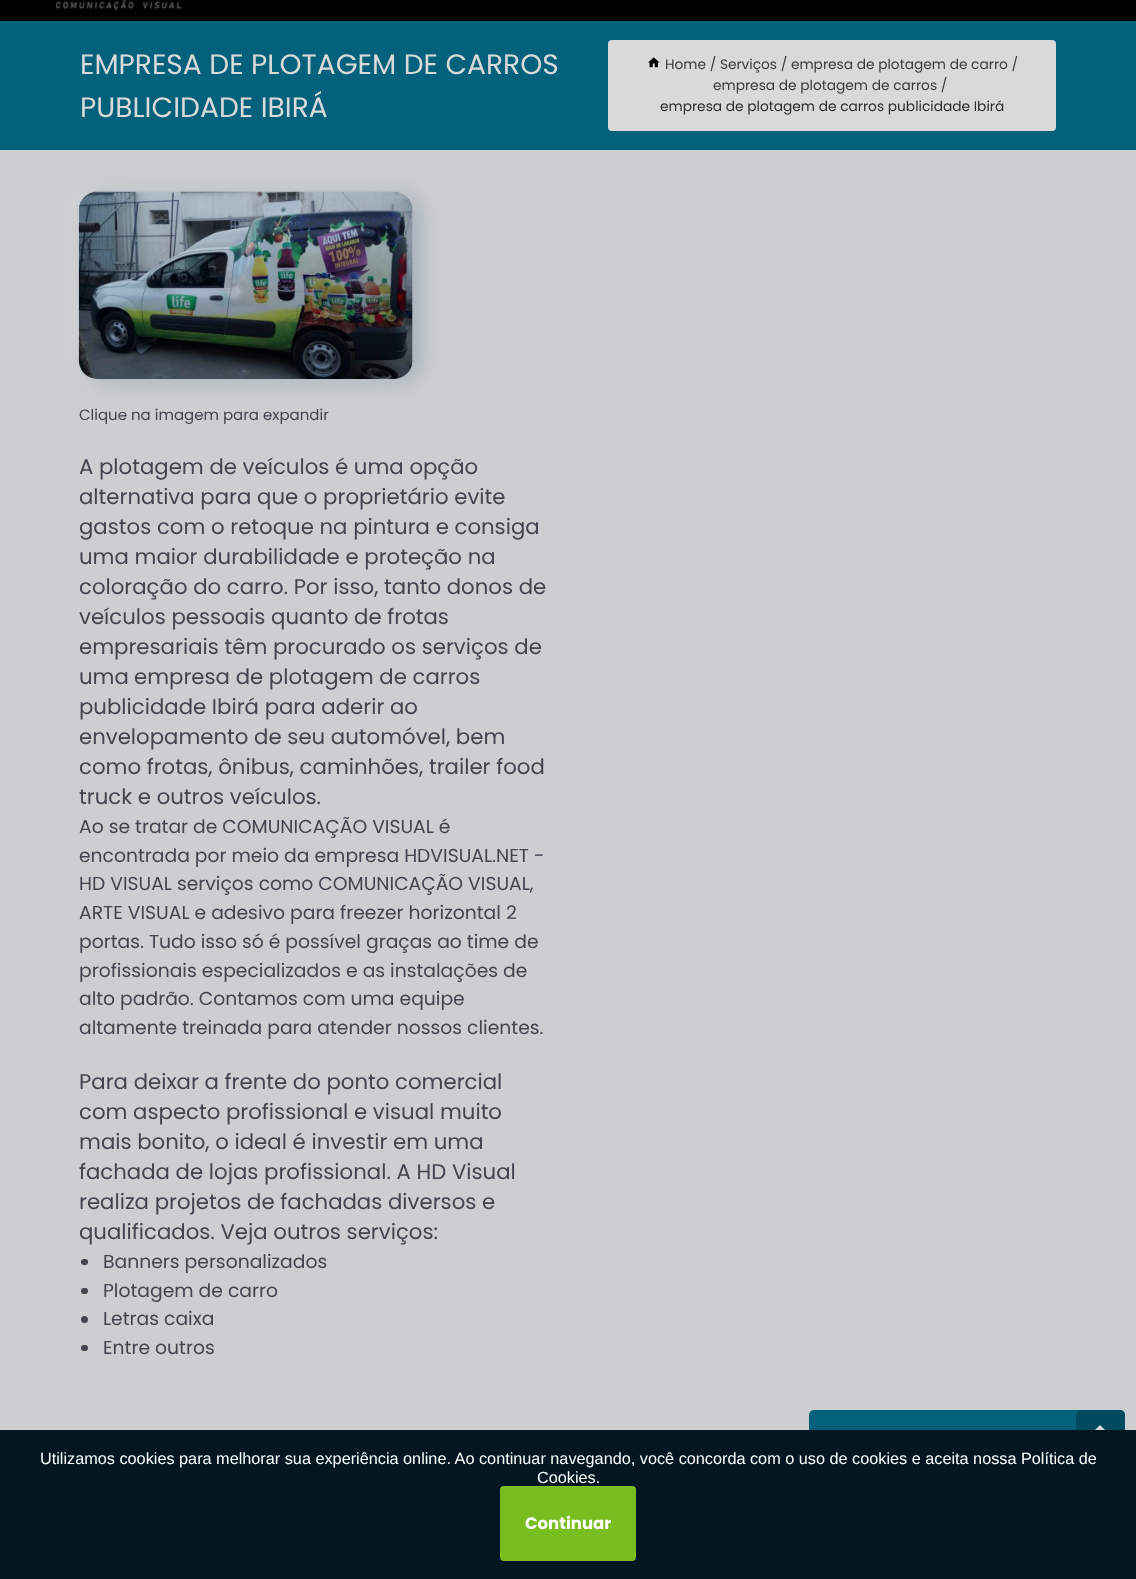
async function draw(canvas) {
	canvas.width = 1136;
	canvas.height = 1579;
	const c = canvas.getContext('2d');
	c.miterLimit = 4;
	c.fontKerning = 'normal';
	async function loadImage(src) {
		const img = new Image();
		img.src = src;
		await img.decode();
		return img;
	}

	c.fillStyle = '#ccced0';
	c.fillRect(0, 0, 1136, 1579);
	c.fillStyle = '#000';
	c.fillRect(0, 0, 1136, 21);
	c.drawImage(await loadImage('img1.png'), 56, 0, 126, 11);
	c.fillStyle = '#04617c';
	c.fillRect(0, 21, 1136, 129);
	c.font = '28.1px Poppins';
	c.fillStyle = '#d9d9d9';
	c.fillText('EMPRESA DE PLOTAGEM DE CARROS', 80, 74);
	c.fillText('PUBLICIDADE IBIRÁ', 80, 117);
	c.beginPath();
	c.roundRect(608, 40, 448, 91, 4);
	c.fill();
	c.drawImage(await loadImage('img2.png'), 648, 57, 12, 11);
	c.font = '13.75px Poppins';
	c.fillStyle = '#3a3a3a';
	c.fillText('Home / Serviços / empresa de plotagem de carro /', 665, 69);
	c.fillText('empresa de plotagem de carros /', 713, 90);
	c.fillStyle = '#2b2b2b';
	c.fillText('empresa de plotagem de carros publicidade Ibirá', 660, 111);
	c.fillStyle = '#d9d9d9cc';
	c.filter = 'blur(10px)';
	c.beginPath();
	c.roundRect(71, 189, 334, 187, 19);
	c.fill();
	c.filter = 'none';
	c.fillStyle = '#748ca27a';
	c.filter = 'blur(10px)';
	c.beginPath();
	c.roundRect(86, 194, 334, 187, 19);
	c.fill();
	c.filter = 'none';
	c.drawImage(await loadImage('img3.png'), 78, 191, 335, 188);
	c.font = '15px Poppins';
	c.fillStyle = '#41454e';
	c.fillText('Clique na imagem para expandir', 79, 420);
	c.font = '21.25px Poppins';
	for (const [text, x, y] of [
		['A plotagem de veículos é uma opção', 79, 474],
		['alternativa para que o proprietário evite', 79, 504],
		['gastos com o retoque na pintura e consiga', 79, 534],
		['uma maior durabilidade e proteção na', 79, 564],
		['coloração do carro. Por isso, tanto donos de', 79, 594],
		['veículos pessoais quanto de frotas', 79, 624],
		['empresariais têm procurado os serviços de', 79, 654],
		['uma', 79, 684],
		['empresa de plotagem de carros', 134, 684],
		['publicidade Ibirá para aderir ao', 79, 714],
		['envelopamento de seu automóvel, bem', 79, 744],
		['como frotas, ônibus, caminhões, trailer food', 79, 774],
		['truck e outros veículos.', 79, 804],
	]) {
		c.fillText(text, x, y);
	}
	c.font = '18.75px Poppins';
	for (const [text, x, y] of [
		['Ao se tratar de COMUNICAÇÃO VISUAL é', 79, 833],
		['encontrada por meio da empresa HDVISUAL.NET -', 79, 862],
		['HD VISUAL serviços como COMUNICAÇÃO VISUAL,', 79, 890],
		['ARTE VISUAL e adesivo para freezer horizontal 2', 79, 919],
		['portas. Tudo isso só é possível graças ao time de', 79, 948],
		['profissionais especializados e as instalações de', 79, 977],
		['alto padrão. Contamos com uma equipe', 79, 1005],
		['altamente treinada para atender nossos clientes.', 79, 1034],
	]) {
		c.fillText(text, x, y);
	}
	c.font = '21.25px Poppins';
	for (const [text, x, y] of [
		['Para deixar a frente do ponto comercial', 79, 1089],
		['com aspecto profissional e visual muito', 79, 1119],
		['mais bonito, o ideal é investir em uma', 79, 1149],
		['fachada de lojas profissional. A HD Visual', 79, 1179],
		['realiza projetos de fachadas diversos e', 79, 1209],
		['qualificados. Veja outros serviços:', 79, 1239],
	]) {
		c.fillText(text, x, y);
	}
	c.beginPath();
	c.roundRect(81, 1259, 7, 6, 3);
	c.fill();
	c.font = '18.75px Poppins';
	c.fillText('Banners personalizados', 103, 1268);
	c.beginPath();
	c.roundRect(81, 1288, 7, 6, 3);
	c.fill();
	c.fillText('Plotagem de carro', 103, 1297);
	c.beginPath();
	c.arc(84.5, 1319.5, 3.5, 0, 2 * Math.PI);
	c.fill();
	c.fillText('Letras caixa', 103, 1325);
	c.beginPath();
	c.roundRect(81, 1345, 7, 6, 3);
	c.fill();
	c.fillText('Entre outros', 103, 1354);
	c.fillStyle = '#04617c';
	c.beginPath();
	c.roundRect(809, 1410, 316, 58, 5);
	c.fill();
	c.fillStyle = '#004a5f';
	c.beginPath();
	c.roundRect(1076, 1410, 49, 58, 5);
	c.fill();
	c.drawImage(await loadImage('img4.png'), 1095, 1425, 10, 5);
	c.fillStyle = '#021722';
	c.fillRect(0, 1430, 1136, 149);
	c.font = '16.25px Liberation Sans';
	c.fillStyle = '#fff';
	c.fillText('Utilizamos cookies para melhorar sua experiência online. Ao continuar navegando, você concorda com o uso de cookies e aceita nossa Política de', 40, 1464);
	c.fillText('Cookies.', 537, 1483);
	c.fillStyle = '#78be20';
	c.beginPath();
	c.roundRect(500, 1486, 136, 75, 4);
	c.fill();
	c.font = 'bold 16.5px Poppins';
	c.fillStyle = '#fff';
	c.fillText('Continuar', 525, 1529);
}

draw(document.querySelector('canvas'));
